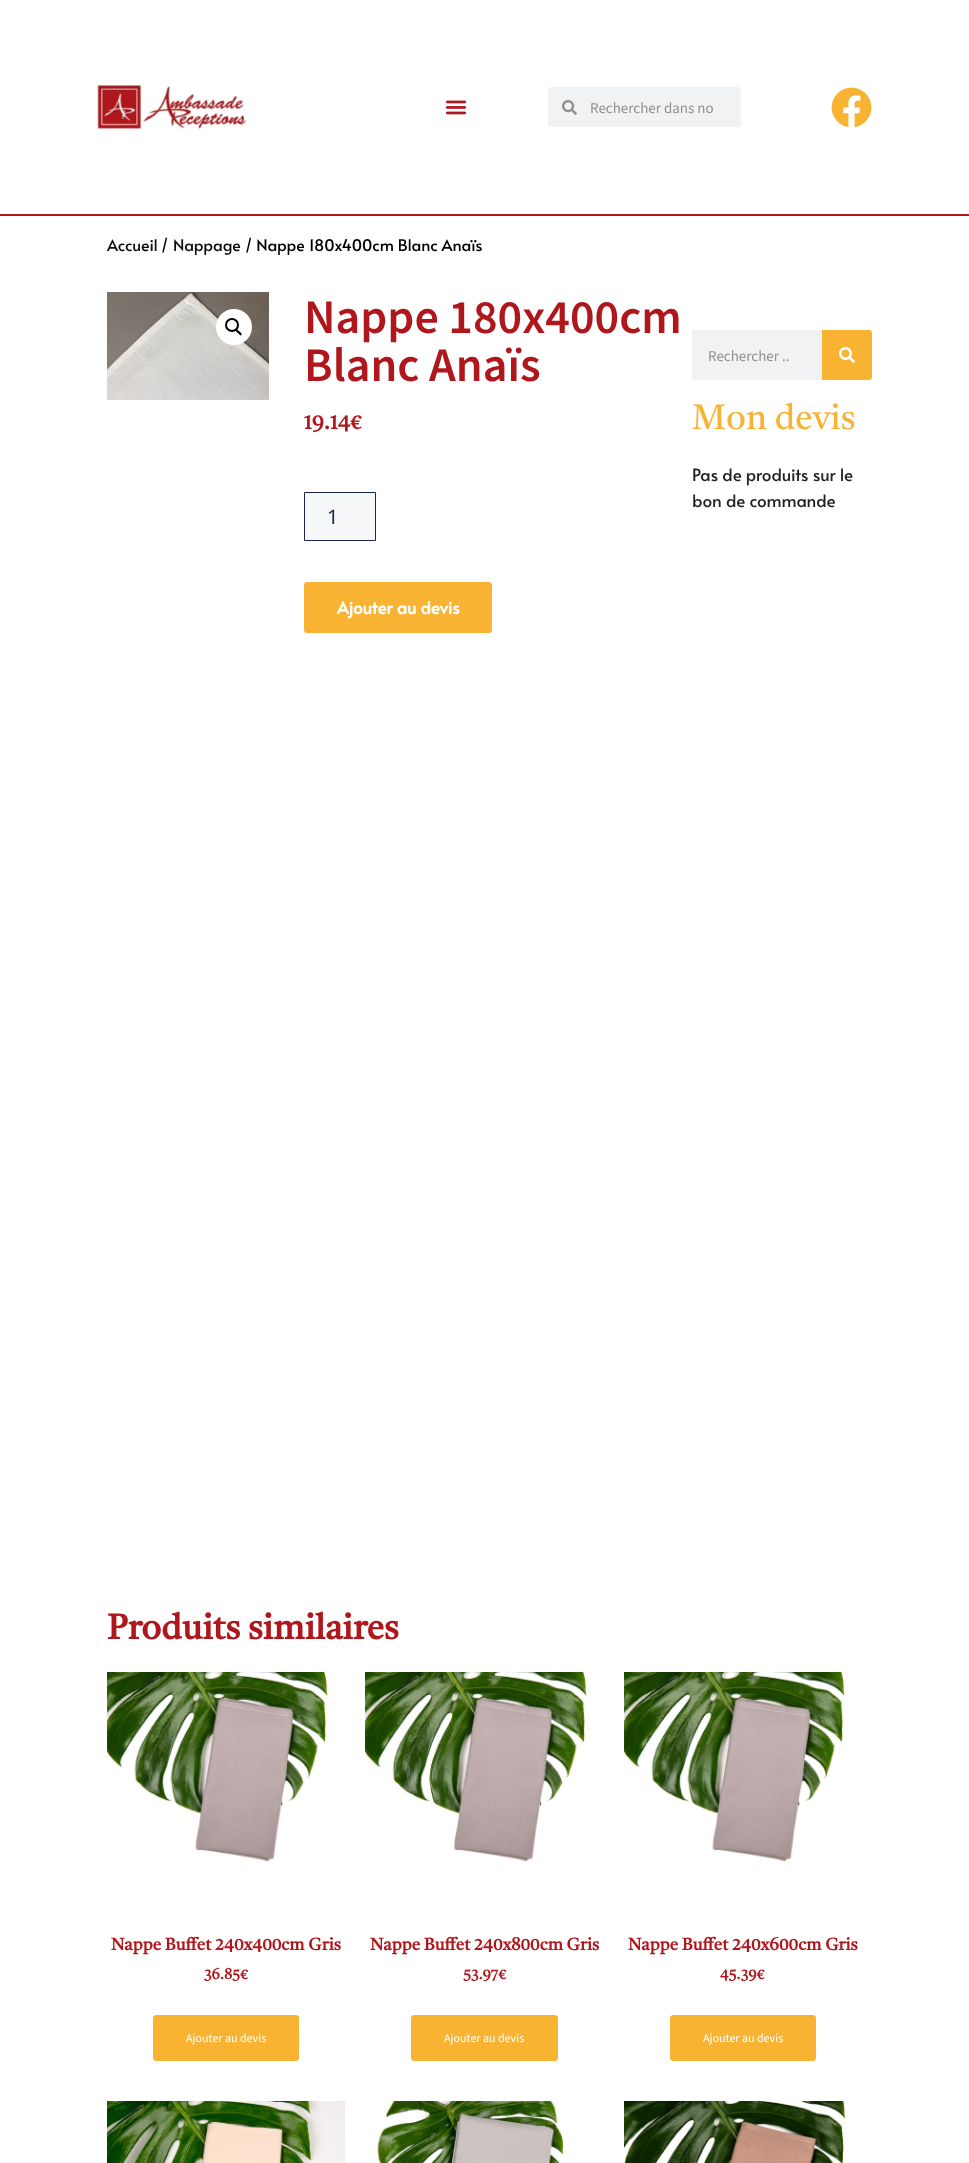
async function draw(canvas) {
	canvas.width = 969;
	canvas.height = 2163;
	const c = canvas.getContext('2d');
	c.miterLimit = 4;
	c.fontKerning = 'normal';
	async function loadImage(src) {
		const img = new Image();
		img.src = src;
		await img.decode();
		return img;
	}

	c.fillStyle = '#fff';
	c.fillRect(0, 0, 969, 2163);
	c.fillStyle = '#b0171c';
	c.fillRect(0, 214, 969, 2);
	c.drawImage(await loadImage('img1.png'), 97, 85, 150, 44);
	c.drawImage(await loadImage('img2.png'), 445, 100, 22, 15);
	c.fillStyle = '#f1f2f3';
	c.beginPath();
	c.roundRect(548, 87, 193, 40, 3);
	c.fill();
	c.drawImage(await loadImage('img3.png'), 562, 100, 15, 15);
	c.font = '15px Source Sans Pro';
	c.fillStyle = '#8f8f8f';
	c.fillText('Rechercher dans no', 590, 113);
	c.drawImage(await loadImage('img4.png'), 831, 87, 41, 41);
	c.font = '16px Alata';
	c.fillStyle = '#0c0c0c';
	c.fillText('Accueil', 107, 251);
	c.fillStyle = '#000';
	c.fillText('/', 161, 251);
	c.fillStyle = '#0c0c0c';
	c.fillText('Nappage', 173, 251);
	c.fillStyle = '#000';
	c.fillText('/ Nappe 180x400cm Blanc Anaïs', 245, 251);
	c.drawImage(await loadImage('img5.png'), 107, 292, 162, 108);
	c.fillStyle = '#fff';
	c.beginPath();
	c.arc(234, 327, 18, 0, 2 * Math.PI);
	c.fill();
	c.beginPath();
	c.arc(232, 325, 6, 0, 2 * Math.PI);
	c.strokeStyle = '#000';
	c.lineWidth = 2;
	c.stroke();
	c.fillStyle = '#000';
	c.beginPath();
	c.moveTo(236, 329.5);
	c.bezierCurveTo(237, 328.5, 238.5, 331, 239.5, 331.5);
	c.bezierCurveTo(240, 332, 242.5, 334, 241.5, 335);
	c.bezierCurveTo(240.5, 336.5, 238.5, 333.5, 238, 333);
	c.bezierCurveTo(237.5, 332.5, 234.5, 330.5, 236, 329.5);
	c.closePath();
	c.fill();
	c.font = '600 48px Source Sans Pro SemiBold';
	c.fillStyle = '#b0171c';
	c.fillText('Nappe 180x400cm', 304, 333);
	c.fillText('Blanc Anaïs', 304, 381);
	c.font = 'bold 21px Tiro Tamil';
	c.fillText('19.14€', 304, 429);
	c.fillStyle = '#f7f8f9';
	c.beginPath();
	c.rect(304.5, 492.5, 71, 48);
	c.fill();
	c.strokeStyle = '#1c244b';
	c.lineWidth = 1;
	c.stroke();
	c.font = '20px Noto Sans';
	c.fillStyle = '#1c244b';
	c.fillText('1', 327, 524);
	c.fillStyle = '#f8b332';
	c.beginPath();
	c.roundRect(304.5, 582.5, 187, 50, 2.5);
	c.fill();
	c.strokeStyle = '#f8b332';
	c.stroke();
	c.font = 'bold 17px Alata';
	c.fillStyle = '#fff';
	c.fillText('Ajouter au devis', 337, 614);
	c.fillStyle = '#f1f2f3';
	c.beginPath();
	c.roundRect(692, 330, 180, 50, 3);
	c.fill();
	c.font = '15px Source Sans Pro';
	c.fillStyle = '#8f8f8f';
	c.fillText('Rechercher ..', 708, 361);
	c.fillStyle = '#f8b332';
	c.beginPath();
	c.roundRect(822, 330, 50, 50, [0, 3, 3, 0]);
	c.fill();
	c.drawImage(await loadImage('img6.png'), 839, 347, 16, 16);
	c.font = '35px Tiro Tamil';
	c.fillText('Mon devis', 692, 429);
	c.font = '17px Alata';
	c.fillStyle = '#222';
	c.fillText('Pas de produits sur le', 692, 481);
	c.fillText('bon de commande', 692, 507);
	c.font = 'bold 35px Tiro Tamil';
	c.fillStyle = '#b0171c';
	c.fillText('Produits similaires', 107, 1639);
	c.drawImage(await loadImage('img7.png'), 107, 1672, 221, 190);
	c.font = 'bold 17px Tiro Tamil';
	c.fillText('Nappe Buffet 240x400cm Gris', 111, 1950);
	c.font = 'bold 14.5px Tiro Tamil';
	c.fillText('36.85€', 204, 1979);
	c.fillStyle = '#f8b332';
	c.beginPath();
	c.roundRect(153.5, 2015.5, 145, 45, 2.5);
	c.fill();
	c.stroke();
	c.font = '12px Source Sans Pro';
	c.fillStyle = '#fff';
	c.fillText('Ajouter au devis', 186, 2042);
	c.drawImage(await loadImage('img8.png'), 365, 1672, 222, 190);
	c.font = 'bold 17px Tiro Tamil';
	c.fillStyle = '#b0171c';
	c.fillText('Nappe Buffet 240x800cm Gris', 370, 1950);
	c.font = 'bold 14.5px Tiro Tamil';
	c.fillText('53.97€', 463, 1979);
	c.fillStyle = '#f8b332';
	c.beginPath();
	c.roundRect(411.5, 2015.5, 146, 45, 2.5);
	c.fill();
	c.stroke();
	c.font = '12px Source Sans Pro';
	c.fillStyle = '#fff';
	c.fillText('Ajouter au devis', 444, 2042);
	c.drawImage(await loadImage('img7.png'), 624, 1672, 221, 190);
	c.font = 'bold 17px Tiro Tamil';
	c.fillStyle = '#b0171c';
	c.fillText('Nappe Buffet 240x600cm Gris', 628, 1950);
	c.font = 'bold 14.5px Tiro Tamil';
	c.fillText('45.39€', 720, 1979);
	c.fillStyle = '#f8b332';
	c.beginPath();
	c.roundRect(670.5, 2015.5, 145, 45, 2.5);
	c.fill();
	c.stroke();
	c.font = '12px Source Sans Pro';
	c.fillStyle = '#fff';
	c.fillText('Ajouter au devis', 703, 2042);
	c.drawImage(await loadImage('img9.png'), 107, 2101, 238, 62);
	c.drawImage(await loadImage('img10.png'), 377, 2101, 187, 62);
	c.drawImage(await loadImage('img11.png'), 624, 2101, 222, 62);
}

draw(document.querySelector('canvas'));
